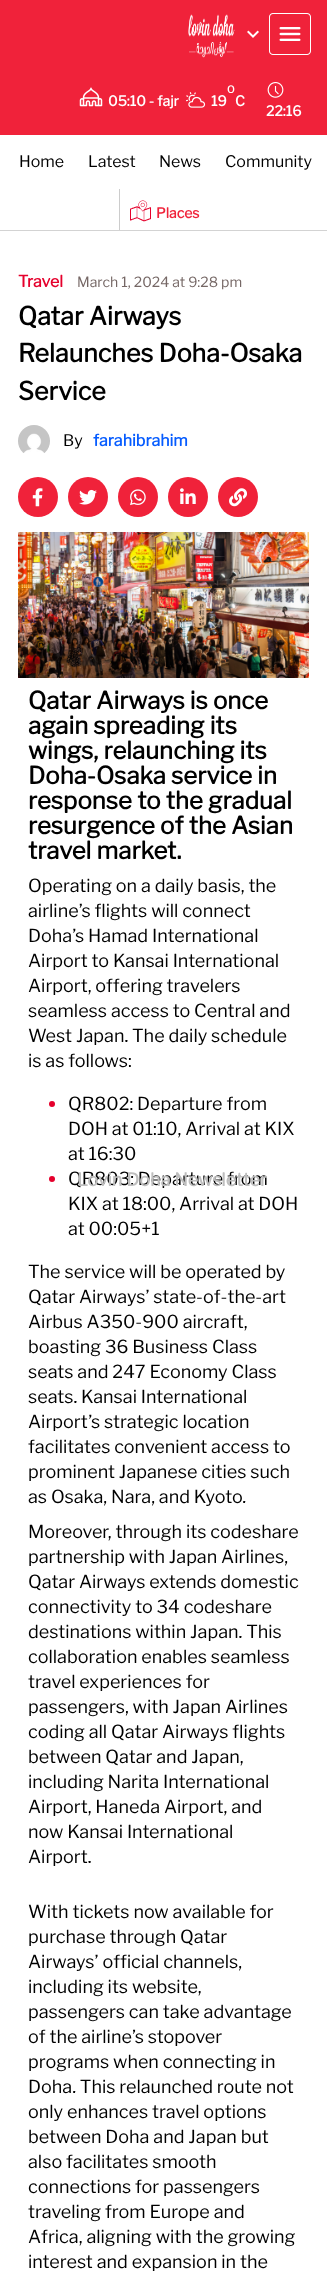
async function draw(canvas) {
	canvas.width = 327;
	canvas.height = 2271;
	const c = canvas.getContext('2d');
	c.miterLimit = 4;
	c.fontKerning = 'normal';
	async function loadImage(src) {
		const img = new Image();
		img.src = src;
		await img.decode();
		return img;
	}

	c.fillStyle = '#fff';
	c.fillRect(0, 0, 327, 2271);
	c.fillStyle = '#f0223a';
	c.fillRect(0, 0, 327, 135);
	c.drawImage(await loadImage('img1.png'), 188, 14, 47, 44);
	c.drawImage(await loadImage('img2.png'), 247, 30, 12, 8);
	c.drawImage(await loadImage('img3.png'), 269, 13, 42, 42);
	c.drawImage(await loadImage('img4.png'), 79, 87, 24, 20);
	c.font = 'bold 14px Libre Franklin';
	c.fillStyle = '#fff';
	c.fillText('05:10 - fajr', 108, 106);
	c.drawImage(await loadImage('img5.png'), 186, 92, 20, 16);
	c.font = 'bold 10px Libre Franklin';
	c.fillText('O', 227, 93);
	c.font = 'bold 14px Libre Franklin';
	c.fillText('19', 211, 106);
	c.fillText('C', 235, 106);
	c.drawImage(await loadImage('img6.png'), 267, 82, 17, 16);
	c.fillText('22:16', 266, 116);
	c.fillStyle = '#d3d3d3';
	c.fillRect(0, 230, 327, 1);
	c.font = '100 16px Libre Franklin';
	c.fillStyle = '#000';
	for (const [text, x, y] of [
		['Home', 19, 167],
		['Latest', 88, 167],
		['News', 159, 167],
		['Community', 225, 167],
	]) {
		c.fillText(text, x, y);
	}
	c.fillStyle = '#ccc';
	c.fillRect(119, 189, 1, 41);
	c.drawImage(await loadImage('img7.png'), 130, 200, 21, 22);
	c.font = 'bold 14px Libre Franklin';
	c.fillStyle = '#f0223a';
	c.fillText('Places', 156, 218);
	c.font = 'bold 16px Libre Franklin';
	c.fillStyle = '#e5002c';
	c.fillText('Travel', 18, 287);
	c.font = '100 14px Libre Franklin';
	c.fillStyle = '#756765';
	c.fillText('March 1, 2024 at 9:28 pm', 77, 287);
	c.font = 'bold 25px Libre Franklin';
	c.fillStyle = '#000';
	for (const [text, x, y] of [
		['Qatar Airways', 18, 325],
		['Relaunches Doha-Osaka', 18, 362],
		['Service', 18, 400],
	]) {
		c.fillText(text, x, y);
	}
	c.drawImage(await loadImage('img8.png'), 18, 425, 32, 28);
	c.font = '100 16px Libre Franklin';
	c.fillText('By', 63, 446);
	c.font = 'bold 16px Libre Franklin';
	c.fillStyle = '#065cff';
	c.fillText('farahibrahim', 93, 446);
	c.fillStyle = '#f0223a';
	c.beginPath();
	c.arc(38, 497, 20, 0, 2 * Math.PI);
	c.fill();
	c.drawImage(await loadImage('img9.png'), 32, 488, 11, 19);
	c.beginPath();
	c.arc(88, 497, 20, 0, 2 * Math.PI);
	c.fill();
	c.drawImage(await loadImage('img10.png'), 79, 489, 18, 16);
	c.beginPath();
	c.arc(138, 497, 20, 0, 2 * Math.PI);
	c.fill();
	c.drawImage(await loadImage('img11.png'), 130, 489, 16, 17);
	c.beginPath();
	c.arc(188, 497, 20, 0, 2 * Math.PI);
	c.fill();
	c.drawImage(await loadImage('img12.png'), 180, 488, 16, 16);
	c.beginPath();
	c.arc(238, 497, 20, 0, 2 * Math.PI);
	c.fill();
	c.drawImage(await loadImage('img13.png'), 229, 488, 18, 19);
	c.drawImage(await loadImage('img14.png'), 18, 532, 291, 146);
	c.font = 'bold 24px Libre Franklin';
	c.fillStyle = '#000';
	for (const [text, x, y] of [
		['Qatar Airways is once', 28, 709],
		['again spreading its', 28, 734],
		['wings, relaunching its', 28, 759],
		['Doha-Osaka service in', 28, 784],
		['response to the gradual', 28, 809],
		['resurgence of the Asian', 28, 834],
		['travel market.', 28, 859],
	]) {
		c.fillText(text, x, y);
	}
	c.font = '100 18px Libre Franklin';
	for (const [text, x, y] of [
		['Operating on a daily basis, the', 28, 892],
		['airline’s flights will connect', 28, 917],
		['Doha’s Hamad International', 28, 942],
		['Airport to Kansai International', 28, 967],
		['Airport, offering travelers', 28, 992],
		['seamless access to Central and', 28, 1017],
		['West Japan. The daily schedule', 28, 1042],
		['is as follows:', 28, 1067],
	]) {
		c.fillText(text, x, y);
	}
	c.fillStyle = '#e5002c';
	c.beginPath();
	c.arc(52, 1104, 3, 0, 2 * Math.PI);
	c.fill();
	c.fillStyle = '#000';
	for (const [text, x, y] of [
		['QR802: Departure from', 68, 1110],
		['DOH at 01:10, Arrival at KIX', 68, 1135],
		['at 16:30', 68, 1160],
	]) {
		c.fillText(text, x, y);
	}
	c.fillStyle = '#e5002c';
	c.beginPath();
	c.arc(52, 1179, 3, 0, 2 * Math.PI);
	c.fill();
	c.fillStyle = '#000';
	for (const [text, x, y] of [
		['QR803: Departure from', 68, 1185],
		['KIX at 18:00, Arrival at DOH', 68, 1210],
		['at 00:05+1', 68, 1235],
		['The service will be operated by', 28, 1278],
		['Qatar Airways’ state-of-the-art', 28, 1303],
		['Airbus A350-900 aircraft,', 28, 1328],
		['boasting 36 Business Class', 28, 1353],
		['seats and 247 Economy Class', 28, 1378],
		['seats. Kansai International', 28, 1403],
		['Airport’s strategic location', 28, 1428],
		['facilitates convenient access to', 28, 1453],
		['prominent Japanese cities such', 28, 1478],
		['as Osaka, Nara, and Kyoto.', 28, 1503],
		['Moreover, through its codeshare', 28, 1538],
		['partnership with Japan Airlines,', 28, 1563],
		['Qatar Airways extends domestic', 28, 1588],
		['connectivity to 34 codeshare', 28, 1613],
		['destinations within Japan. This', 28, 1638],
		['collaboration enables seamless', 28, 1663],
		['travel experiences for', 28, 1688],
		['passengers, with Japan Airlines', 28, 1713],
		['coding all Qatar Airways flights', 28, 1738],
		['between Qatar and Japan,', 28, 1763],
		['including Narita International', 28, 1788],
		['Airport, Haneda Airport, and', 28, 1813],
		['now Kansai International', 28, 1838],
		['Airport.', 28, 1863],
		['With tickets now available for', 28, 1918],
		['purchase through Qatar', 28, 1943],
		['Airways’ official channels,', 28, 1968],
		['including its website,', 28, 1993],
		['passengers can take advantage', 28, 2018],
		['of the airline’s stopover', 28, 2043],
		['programs when connecting in', 28, 2068],
		['Doha. This relaunched route not', 28, 2093],
		['only enhances travel options', 28, 2118],
		['between Doha and Japan but', 28, 2143],
		['also facilitates smooth', 28, 2168],
		['connections for passengers', 28, 2193],
		['traveling from Europe and', 28, 2218],
		['Africa, aligning with the growing', 28, 2243],
		['interest and expansion in the', 28, 2268],
	]) {
		c.fillText(text, x, y);
	}
	c.font = 'bold 18px Libre Franklin';
	c.fillStyle = '#bebebe';
	c.fillText('Lovin Doha Newsletter', 77, 1186);
}

draw(document.querySelector('canvas'));
